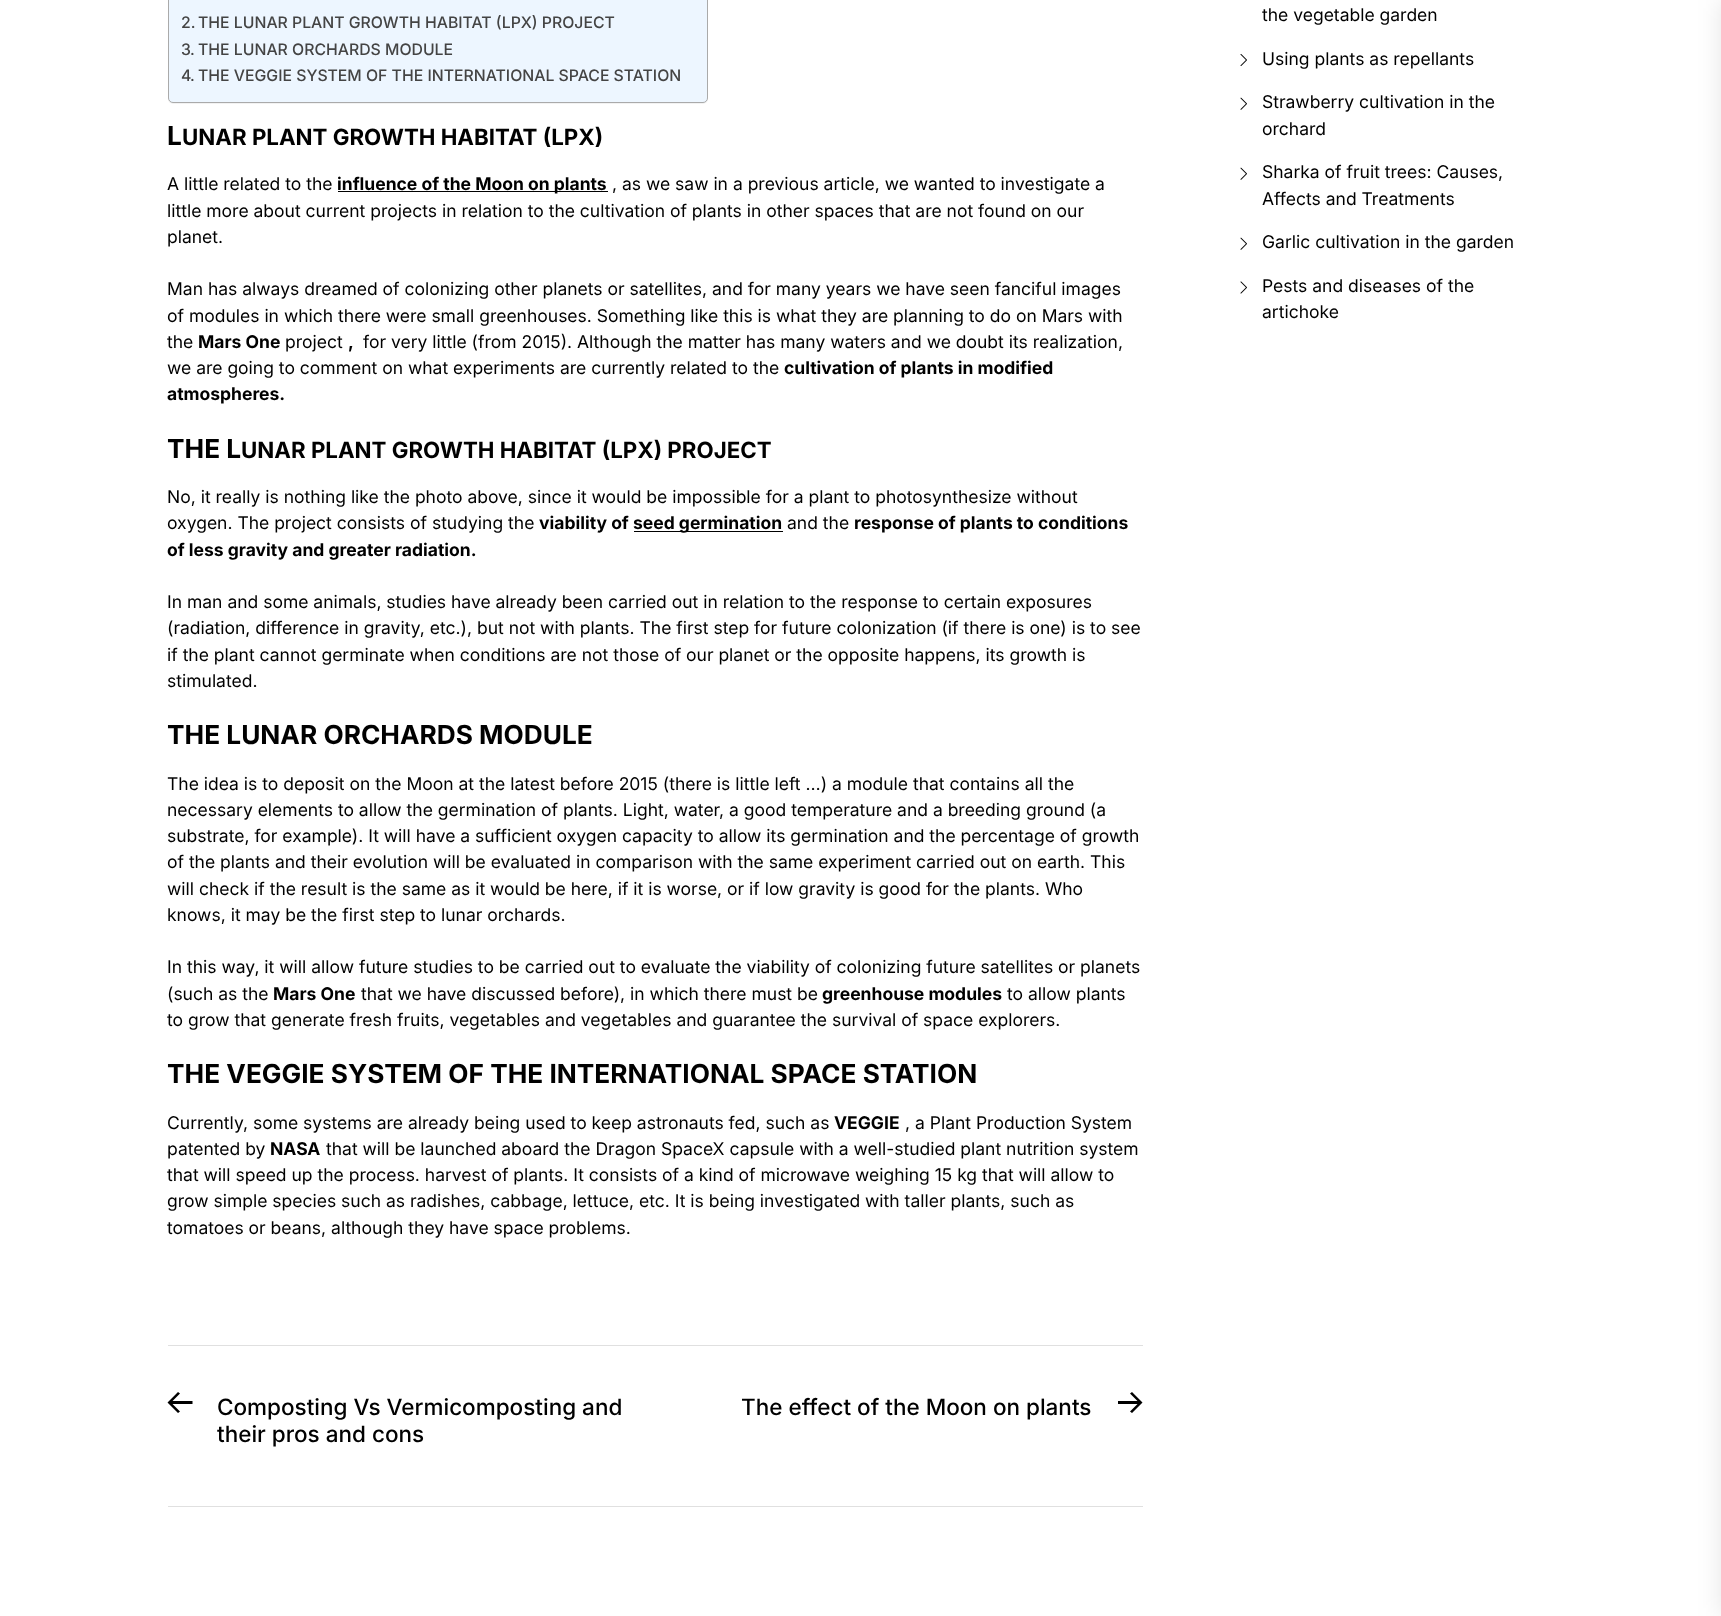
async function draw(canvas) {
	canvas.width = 1721;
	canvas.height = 1616;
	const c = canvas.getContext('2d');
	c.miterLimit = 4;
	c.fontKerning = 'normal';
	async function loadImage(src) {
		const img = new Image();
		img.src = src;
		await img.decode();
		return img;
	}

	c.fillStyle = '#fff';
	c.fillRect(0, 0, 1721, 1616);
	c.fillStyle = '#0000000d';
	c.filter = 'blur(0.5px)';
	c.beginPath();
	c.roundRect(168, -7, 540, 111, 5);
	c.fill();
	c.filter = 'none';
	c.fillStyle = '#edf6ff';
	c.beginPath();
	c.roundRect(168.5, -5.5, 539, 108, 4.5);
	c.fill();
	c.strokeStyle = '#aaa';
	c.stroke();
	c.font = '500 15.8px Inter';
	c.fillStyle = '#444';
	for (const [text, x, y] of [
		['2.', 181, 28],
		['THE LUNAR PLANT GROWTH HABITAT (LPX) PROJECT', 198, 28],
		['3', 181, 55],
		['.', 190, 55],
		['THE LUNAR ORCHARDS MODULE', 198, 55],
		['4', 181, 81],
		['.', 190, 81],
		['THE VEGGIE SYSTEM OF THE INTERNATIONAL SPACE STATION', 198, 81],
	]) {
		c.fillText(text, x, y);
	}
	c.font = 'bold 26.25px Inter';
	c.fillStyle = '#000';
	c.fillText('L', 167, 145);
	c.font = 'bold 22.3px Inter';
	c.fillText('UNAR PLANT GROWTH HABITAT (LPX)', 182, 145);
	c.font = '17.5px Inter';
	c.fillText('A little related to the', 167, 190);
	c.fillRect(338, 191, 270, 1);
	c.font = 'bold 17.5px Inter';
	c.fillText('influence of the Moon on plants', 337, 190);
	c.font = '17.5px Inter';
	for (const [text, x, y] of [
		[', as we saw in a previous article, we wanted to investigate a', 612, 190],
		['little more about current projects in relation to the cultivation of plants in other spaces that are not found on our', 167, 217],
		['planet.', 167, 243],
		['Man has always dreamed of colonizing other planets or satellites, and for many years we have seen fanciful images', 167, 295],
		['of modules in which there were small greenhouses. Something like this is what they are planning to do on Mars with', 167, 322],
		['the', 167, 348],
	]) {
		c.fillText(text, x, y);
	}
	c.font = 'bold 17.5px Inter';
	c.fillText('Mars One', 198, 348);
	c.font = '17.5px Inter';
	c.fillText('project', 285, 348);
	c.font = 'bold 17.5px Inter';
	c.fillText(',', 348, 348);
	c.font = '17.5px Inter';
	c.fillText('for very little (from 2015). Although the matter has many waters and we doubt its realization,', 363, 348);
	c.fillText('we are going to comment on what experiments are currently related to the', 167, 374);
	c.font = 'bold 17.5px Inter';
	c.fillText('cultivation of plants in modified', 784, 374);
	c.fillText('atmospheres.', 167, 400);
	c.font = 'bold 26.25px Inter';
	c.fillText('THE L', 167, 458);
	c.font = 'bold 22.3px Inter';
	c.fillText('UNAR PLANT GROWTH HABITAT (LPX) PROJECT', 241, 458);
	c.font = '17.5px Inter';
	c.fillText('No, it really is nothing like the photo above, since it would be impossible for a plant to photosynthesize without', 167, 503);
	c.fillText('oxygen. The project consists of studying the', 167, 529);
	c.font = 'bold 17.5px Inter';
	c.fillText('viability of', 539, 529);
	c.fillRect(634, 531, 149, 1);
	c.fillText('seed germination', 633, 529);
	c.font = '17.5px Inter';
	c.fillText('and the', 787, 529);
	c.font = 'bold 17.5px Inter';
	c.fillText('response of plants to conditions', 854, 529);
	c.fillText('of less gravity and greater radiation.', 167, 556);
	c.font = '17.5px Inter';
	for (const [text, x, y] of [
		['In man and some animals, studies have already been carried out in relation to the response to certain exposures', 167, 608],
		['(radiation, difference in gravity, etc.), but not with plants. The first step for future colonization (if there is one) is to see', 167, 634],
		['if the plant cannot germinate when conditions are not those of our planet or the opposite happens, its growth is', 167, 661],
		['stimulated.', 167, 687],
	]) {
		c.fillText(text, x, y);
	}
	c.font = 'bold 26.25px Inter';
	c.fillText('THE LUNAR ORCHARDS MODULE', 167, 744);
	c.font = '17.5px Inter';
	for (const [text, x, y] of [
		['The idea is to deposit on the Moon at the latest before 2015 (there is little left …) a module that contains all the', 167, 790],
		['necessary elements to allow the germination of plants. Light, water, a good temperature and a breeding ground (a', 167, 816],
		['substrate, for example). It will have a sufficient oxygen capacity to allow its germination and the percentage of growth', 167, 842],
		['of the plants and their evolution will be evaluated in comparison with the same experiment carried out on earth. This', 167, 868],
		['will check if the result is the same as it would be here, if it is worse, or if low gravity is good for the plants. Who', 167, 895],
		['knows, it may be the first step to lunar orchards.', 167, 921],
		['In this way, it will allow future studies to be carried out to evaluate the viability of colonizing future satellites or planets', 167, 973],
		['(such as the', 167, 1000],
	]) {
		c.fillText(text, x, y);
	}
	c.font = 'bold 17.5px Inter';
	c.fillText('Mars One', 273, 1000);
	c.font = '17.5px Inter';
	c.fillText('that we have discussed before), in which there must be', 361, 1000);
	c.font = 'bold 17.5px Inter';
	c.fillText('greenhouse modules', 822, 1000);
	c.font = '17.5px Inter';
	c.fillText('to allow plants', 1007, 1000);
	c.fillText('to grow that generate fresh fruits, vegetables and vegetables and guarantee the survival of space explorers.', 167, 1026);
	c.font = 'bold 26.25px Inter';
	c.fillText('THE VEGGIE SYSTEM OF THE INTERNATIONAL SPACE STATION', 167, 1083);
	c.font = '17.5px Inter';
	c.fillText('Currently, some systems are already being used to keep astronauts fed, such as', 167, 1129);
	c.font = 'bold 17.5px Inter';
	c.fillText('VEGGIE', 834, 1129);
	c.font = '17.5px Inter';
	c.fillText(', a Plant Production System', 905, 1129);
	c.fillText('patented by', 167, 1155);
	c.font = 'bold 17.5px Inter';
	c.fillText('NASA', 270, 1155);
	c.font = '17.5px Inter';
	for (const [text, x, y] of [
		['that will be launched aboard the Dragon SpaceX capsule with a well-studied plant nutrition system', 326, 1155],
		['that will speed up the process. harvest of plants. It consists of a kind of microwave weighing 15 kg that will allow to', 167, 1181],
		['grow simple species such as radishes, cabbage, lettuce, etc. It is being investigated with taller plants, such as', 167, 1207],
		['tomatoes or beans, although they have space problems.', 167, 1234],
	]) {
		c.fillText(text, x, y);
	}
	c.fillStyle = '#e0e0e0';
	c.fillRect(168, 1345, 975, 1);
	c.fillRect(168, 1506, 975, 1);
	c.fillStyle = '#000';
	c.beginPath();
	c.moveTo(172.5, 1401);
	c.lineTo(180, 1393.5);
	c.lineTo(178, 1392);
	c.lineTo(167.5, 1402.5);
	c.lineTo(178, 1413);
	c.lineTo(180, 1411.5);
	c.lineTo(172.5, 1404);
	c.lineTo(192.5, 1404);
	c.lineTo(192.5, 1401);
	c.closePath();
	c.fill();
	c.font = '500 22.5px Inter';
	for (const [text, x, y] of [
		['Composting Vs Vermicomposting and', 217, 1415],
		['their pros and cons', 217, 1442],
		['The effect of the Moon on plants', 741, 1415],
	]) {
		c.fillText(text, x, y);
	}
	c.save();
	c.beginPath();
	c.rect(1118, 1390, 25, 25);
	c.clip();
	c.beginPath();
	c.moveTo(1137.5, 1401);
	c.lineTo(1130, 1393.5);
	c.lineTo(1132, 1392);
	c.lineTo(1142.5, 1402.5);
	c.lineTo(1132, 1413);
	c.lineTo(1130, 1411.5);
	c.lineTo(1137.5, 1404);
	c.lineTo(1117.5, 1404);
	c.lineTo(1117.5, 1401);
	c.closePath();
	c.fill();
	c.restore();
	c.font = '17.5px Inter';
	c.fillText('the vegetable garden', 1262, 21);
	c.drawImage(await loadImage('img1.png'), 1240, 54, 7, 12);
	c.fillText('Using plants as repellants', 1262, 65);
	c.drawImage(await loadImage('img2.png'), 1240, 97, 7, 13);
	c.fillText('Strawberry cultivation in the', 1262, 108);
	c.fillText('orchard', 1262, 135);
	c.drawImage(await loadImage('img2.png'), 1240, 167, 7, 13);
	c.fillText('Sharka of fruit trees: Causes,', 1262, 178);
	c.fillText('Affects and Treatments', 1262, 205);
	c.drawImage(await loadImage('img2.png'), 1240, 237, 7, 13);
	c.fillText('Garlic cultivation in the garden', 1262, 248);
	c.drawImage(await loadImage('img3.png'), 1240, 281, 7, 13);
	c.fillText('Pests and diseases of the', 1262, 292);
	c.fillText('artichoke', 1262, 318);
	c.fillStyle = '#0000001a';
	c.filter = 'blur(12.5px)';
	c.beginPath();
	c.rect(1721, 0, 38, 1616);
	c.fill();
	c.filter = 'none';
}

draw(document.querySelector('canvas'));
